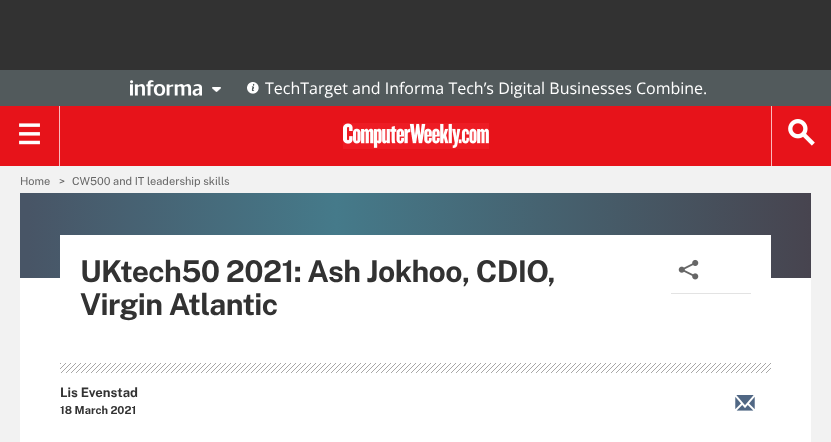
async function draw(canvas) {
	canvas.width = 831;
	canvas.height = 442;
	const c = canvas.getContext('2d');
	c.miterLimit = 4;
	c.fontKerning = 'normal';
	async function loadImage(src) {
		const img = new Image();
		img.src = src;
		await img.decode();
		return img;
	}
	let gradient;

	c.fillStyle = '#f2f2f2';
	c.fillRect(0, 0, 831, 442);
	c.fillStyle = '#323232';
	c.fillRect(0, 0, 831, 70);
	c.fillStyle = '#525a5c';
	c.fillRect(0, 70, 831, 36);
	c.drawImage(await loadImage('img1.png'), 130, 80, 72, 16);
	c.drawImage(await loadImage('img2.png'), 212, 87, 9, 5);
	c.drawImage(await loadImage('img3.png'), 247, 82, 12, 12);
	c.font = '16px Open Sans';
	c.fillStyle = '#fff';
	c.fillText('TechTarget and Informa Tech’s Digital Businesses Combine.', 265, 94);
	c.fillStyle = '#e7131a';
	c.fillRect(0, 106, 831, 60);
	c.fillStyle = '#fababd';
	c.fillRect(59, 106, 1, 60);
	c.drawImage(await loadImage('img4.png'), 19, 123, 21, 22);
	c.drawImage(await loadImage('img5.png'), 343, 123, 146, 26);
	c.fillRect(771, 106, 1, 60);
	c.drawImage(await loadImage('img6.png'), 788, 119, 27, 27);
	c.font = '11px Public Sans';
	c.fillStyle = '#666';
	for (const [text, x, y] of [
		['Home', 20, 185],
		['>', 59, 185],
		['CW500 and IT leadership skills', 72, 185],
	]) {
		c.fillText(text, x, y);
	}
	c.fillStyle = '#fff';
	c.fillRect(20, 278, 791, 164);
	gradient = c.createLinearGradient(20, 236, 811, 235);
	gradient.addColorStop(0, '#485566');
	gradient.addColorStop(0.01, '#485566');
	gradient.addColorStop(0.4, '#457a8a');
	gradient.addColorStop(1, '#47444f');
	c.fillStyle = gradient;
	c.fillRect(20, 193, 791, 85);
	c.fillStyle = '#fff';
	c.fillRect(60, 235, 711, 43);
	c.letterSpacing = '-0.6px';
	c.font = 'bold 30px Public Sans';
	c.fillStyle = '#323232';
	c.fillText('UKtech50 2021: Ash Jokhoo, CDIO,', 80, 282);
	c.fillText('Virgin Atlantic', 80, 315);
	c.fillStyle = '#e3e3e3';
	c.fillRect(671, 293, 80, 1);
	c.drawImage(await loadImage('img7.png'), 678, 259, 21, 21);
	c.drawImage(await loadImage('img8.png'), 60, 363, 711, 10);
	c.letterSpacing = '0px';
	c.font = 'bold 13px Public Sans';
	c.fillStyle = '#323232';
	c.fillText('Lis Evenstad', 60, 397);
	c.font = 'bold 11px Public Sans';
	c.fillText('18 March 2021', 60, 414);
	c.drawImage(await loadImage('img9.png'), 735, 395, 20, 16);
}

draw(document.querySelector('canvas'));
